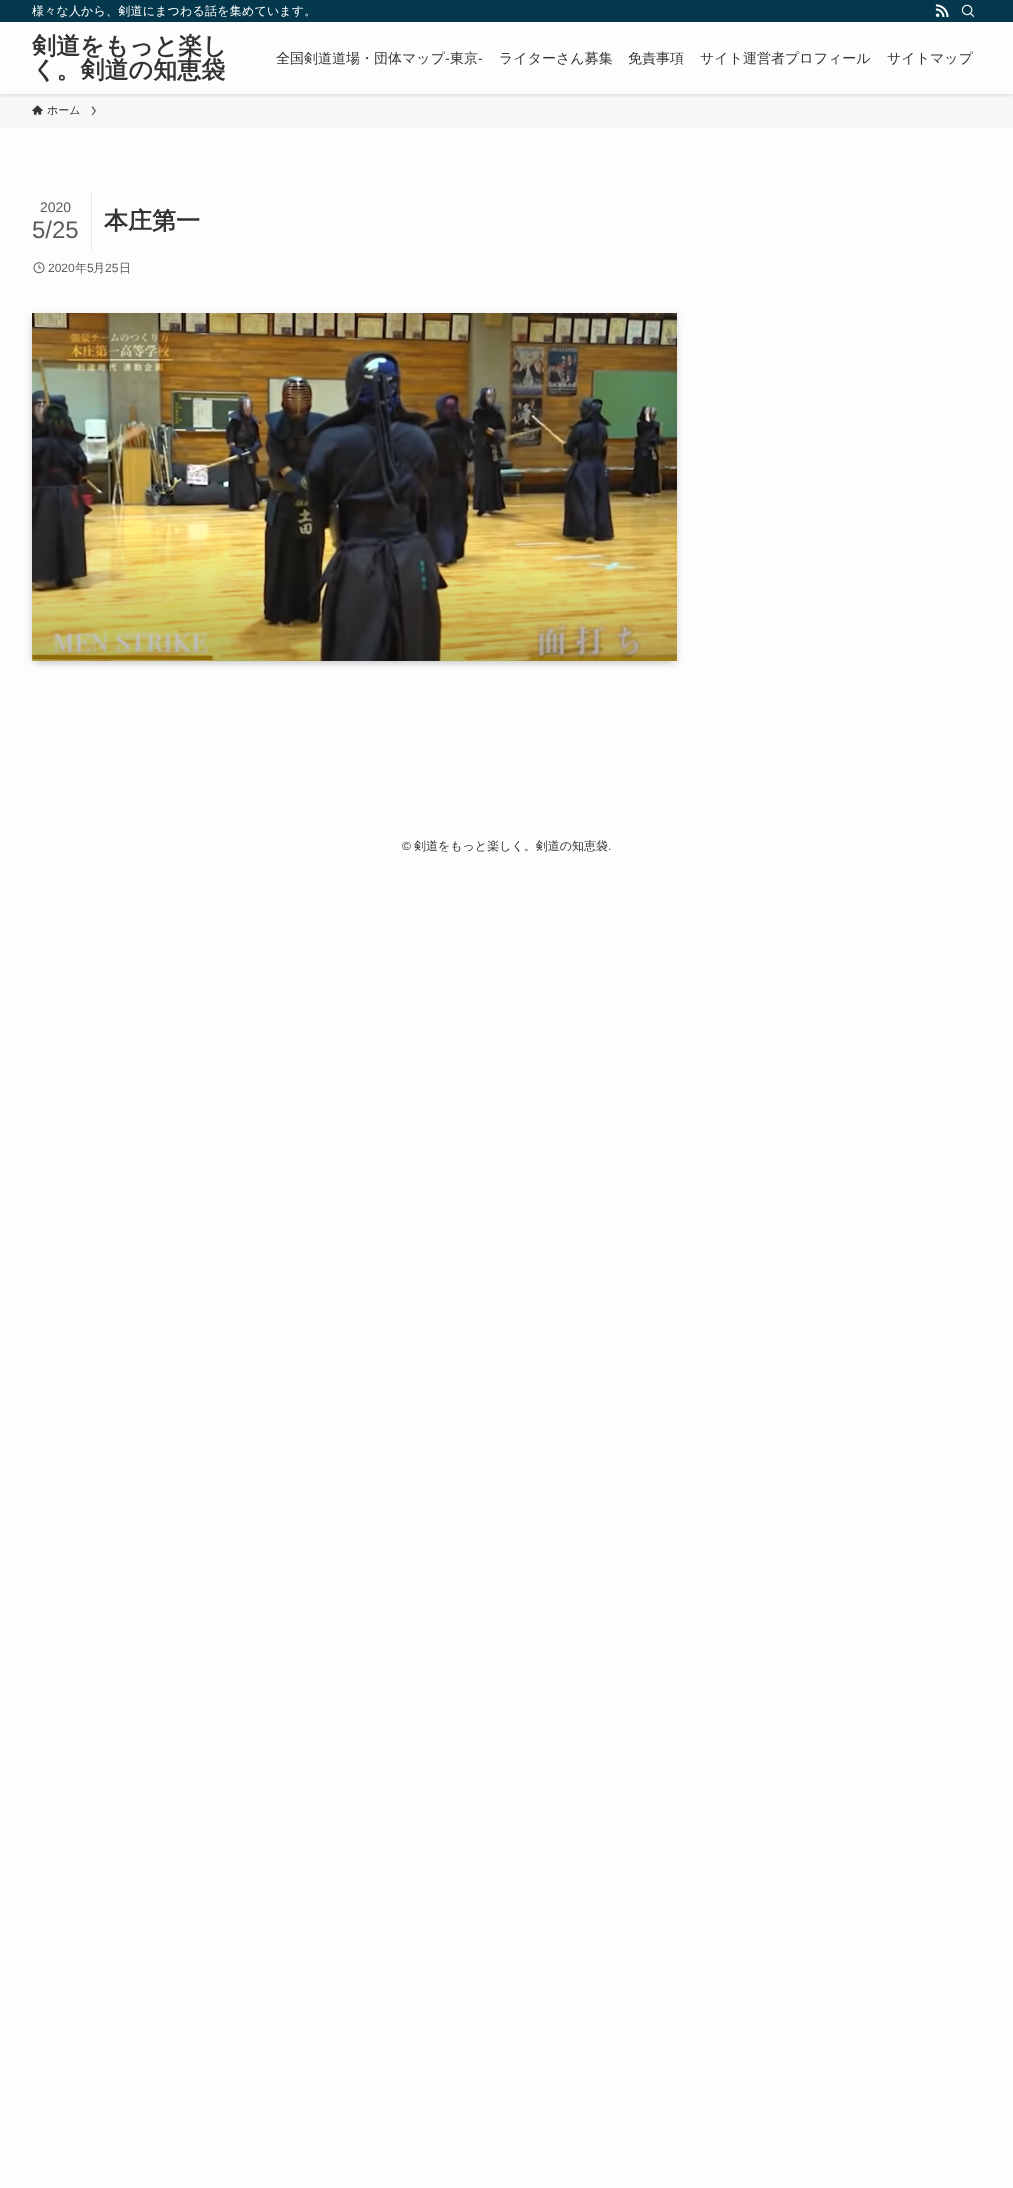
async function draw(canvas) {
	canvas.width = 1013;
	canvas.height = 2188;
	const c = canvas.getContext('2d');
	c.miterLimit = 4;
	c.fontKerning = 'normal';
	async function loadImage(src) {
		const img = new Image();
		img.src = src;
		await img.decode();
		return img;
	}

	c.fillStyle = '#fdfdfd';
	c.fillRect(0, 0, 1013, 2188);
	c.fillStyle = '#f7f7f7';
	c.fillRect(0, 94, 1013, 34);
	c.save();
	c.beginPath();
	c.rect(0, 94, 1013, 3);
	c.clip();
	c.fillStyle = '#0000001f';
	c.filter = 'blur(2px)';
	c.beginPath();
	c.rect(0, 1, 1013, 94);
	c.fill();
	c.filter = 'none';
	c.restore();
	c.fillStyle = '#04384c';
	c.fillRect(0, 0, 1013, 22);
	c.letterSpacing = '0.2px';
	c.font = '500 12px WenQuanYi Zen Hei';
	c.fillStyle = '#fff';
	c.fillText('様々な人から、剣道にまつわる話を集めています。', 32, 15);
	c.drawImage(await loadImage('img1.png'), 935, 4, 14, 13);
	c.drawImage(await loadImage('img2.png'), 961, 4, 14, 13);
	c.letterSpacing = '0px';
	c.font = 'bold 24px WenQuanYi Zen Hei';
	c.fillStyle = '#333';
	c.fillText('剣道をもっと楽し', 32, 54);
	c.fillText('く。剣道の知恵袋', 32, 78);
	c.font = '500 14px WenQuanYi Zen Hei';
	c.fillText('全国剣道道場・団体マップ', 276, 63);
	c.font = '14px Liberation Sans';
	c.fillText('-', 445, 63);
	c.font = '500 14px WenQuanYi Zen Hei';
	c.fillText('東京', 450, 63);
	c.font = '14px Liberation Sans';
	c.fillText('-', 478, 63);
	c.font = '500 14px WenQuanYi Zen Hei';
	for (const [text, x, y] of [
		['ライターさん募集', 499, 63],
		['免責事項', 628, 63],
		['サイト運営者プロフィール', 700, 63],
		['サイトマップ', 887, 63],
	]) {
		c.fillText(text, x, y);
	}
	c.drawImage(await loadImage('img3.png'), 32, 105, 11, 10);
	c.font = '500 11px WenQuanYi Zen Hei';
	c.fillText('ホーム', 47, 114);
	c.fillStyle = '#5a5a5a';
	c.beginPath();
	c.moveTo(93, 106.5);
	c.lineTo(91.5, 107);
	c.lineTo(94.5, 111);
	c.lineTo(91.5, 115);
	c.lineTo(93, 115);
	c.lineTo(96, 111);
	c.closePath();
	c.fill();
	c.fillStyle = '#e8e8e8';
	c.fillRect(91, 192, 1, 58);
	c.font = '14px Liberation Sans';
	c.fillStyle = '#5b5b5b';
	c.fillText('2020', 40, 212);
	c.font = '24px Liberation Sans';
	c.fillText('5/25', 32, 238);
	c.font = 'bold 24px WenQuanYi Zen Hei';
	c.fillStyle = '#333';
	c.fillText('本庄第一', 104, 229);
	c.drawImage(await loadImage('img4.png'), 33, 262, 12, 12);
	c.font = '12px Liberation Sans';
	c.fillStyle = '#5b5b5b';
	c.fillText('2020', 48, 272);
	c.font = '500 12px WenQuanYi Zen Hei';
	c.fillText('年', 75, 272);
	c.font = '12px Liberation Sans';
	c.fillText('5', 87, 272);
	c.font = '500 12px WenQuanYi Zen Hei';
	c.fillText('月', 93, 272);
	c.font = '12px Liberation Sans';
	c.fillText('25', 105, 272);
	c.font = '500 12px WenQuanYi Zen Hei';
	c.fillText('日', 119, 272);
	c.fillStyle = '#00000033';
	c.filter = 'blur(4px)';
	c.beginPath();
	c.rect(36, 321, 637, 340);
	c.fill();
	c.filter = 'none';
	c.fillStyle = '#0000001a';
	c.filter = 'blur(4px)';
	c.beginPath();
	c.rect(32, 315, 645, 348);
	c.fill();
	c.filter = 'none';
	c.drawImage(await loadImage('img5.png'), 32, 313, 645, 348);
	c.font = '12px Liberation Sans';
	c.fillStyle = '#333';
	c.fillText('©', 402, 850);
	c.font = '500 12px WenQuanYi Zen Hei';
	c.fillText('剣道をもっと楽しく。剣道の知恵袋', 414, 850);
	c.font = '12px Liberation Sans';
	c.fillText('.', 608, 850);
}

draw(document.querySelector('canvas'));
